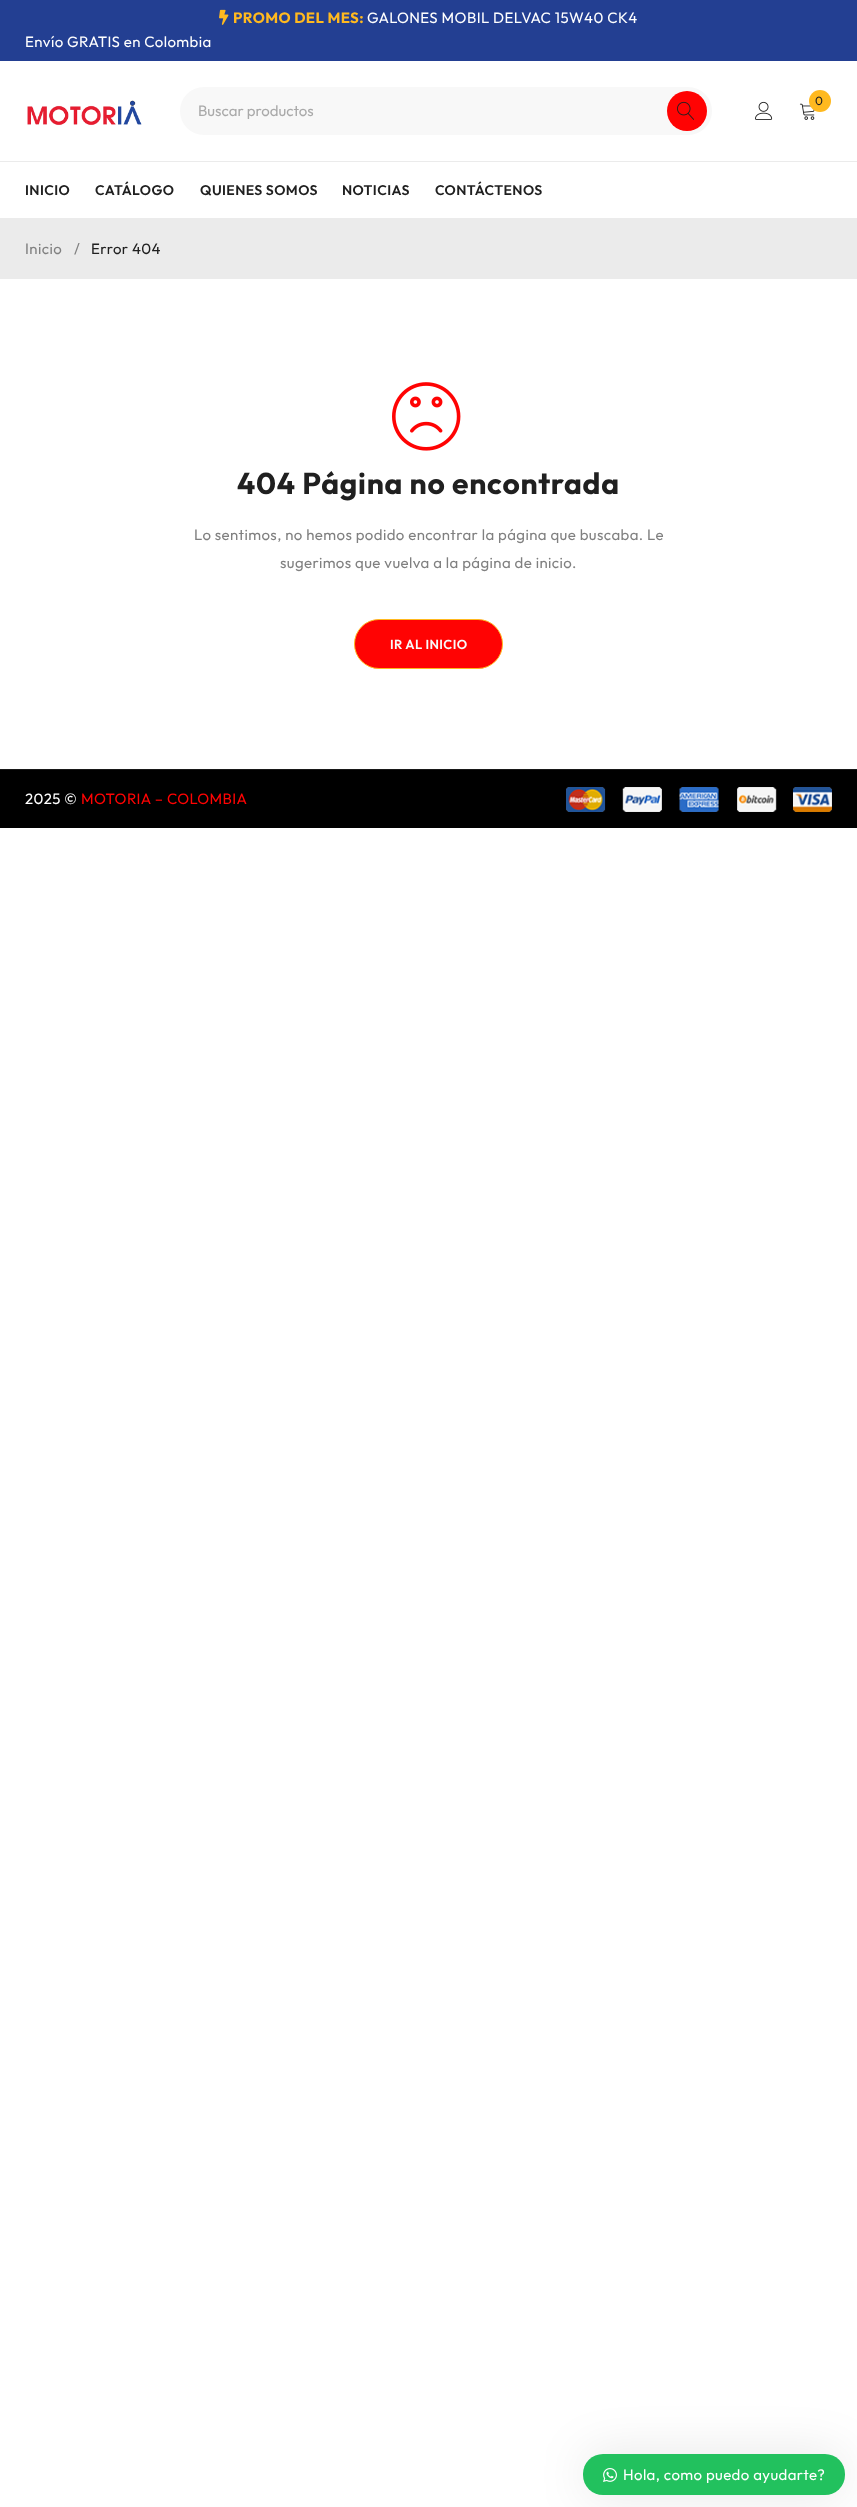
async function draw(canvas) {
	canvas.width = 857;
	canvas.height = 2507;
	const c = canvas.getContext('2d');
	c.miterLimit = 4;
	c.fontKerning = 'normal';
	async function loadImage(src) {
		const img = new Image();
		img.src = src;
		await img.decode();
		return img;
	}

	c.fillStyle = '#fff';
	c.fillRect(0, 0, 857, 2507);
	c.fillStyle = '#233f92';
	c.fillRect(0, 0, 857, 61);
	c.drawImage(await loadImage('img1.png'), 219, 9, 10, 16);
	c.letterSpacing = '0.4px';
	c.font = 'bold 15px Outfit';
	c.fillStyle = '#ffb91f';
	c.fillText('PROMO DEL MES:', 233, 23);
	c.font = '15px Outfit';
	c.fillStyle = '#fff';
	c.fillText('GALONES MOBIL DELVAC 15W40 CK4', 367, 23);
	c.fillText('Envío GRATIS en Colombia', 25, 47);
	c.fillStyle = '#ebebeb';
	c.fillRect(0, 161, 857, 1);
	c.drawImage(await loadImage('img2.png'), 27, 100, 115, 26);
	c.fillStyle = '#f8f8f8';
	c.beginPath();
	c.roundRect(180, 87, 532, 48, 24);
	c.fill();
	c.letterSpacing = '0px';
	c.fillStyle = '#a9a9a9';
	c.fillText('Buscar productos', 198, 116);
	c.fillStyle = '#ff0303';
	c.beginPath();
	c.arc(687, 111, 20, 0, 2 * Math.PI);
	c.fill();
	c.drawImage(await loadImage('img3.png'), 677, 101, 17, 19);
	c.drawImage(await loadImage('img4.png'), 755, 101, 18, 19);
	c.drawImage(await loadImage('img5.png'), 799, 103, 16, 17);
	c.fillStyle = '#ffb91f';
	c.beginPath();
	c.arc(820, 101, 11, 0, 2 * Math.PI);
	c.fill();
	c.letterSpacing = '0.4px';
	c.font = '12px Outfit';
	c.fillStyle = '#202020';
	c.fillText('0', 815, 105);
	c.font = '600 14px Outfit';
	for (const [text, x, y] of [
		['INICIO', 25, 195],
		['CATÁLOGO', 95, 195],
		['QUIENES SOMOS', 200, 195],
		['NOTICIAS', 342, 195],
		['CONTÁCTENOS', 435, 195],
	]) {
		c.fillText(text, x, y);
	}
	c.fillStyle = '#ebebeb';
	c.fillRect(0, 218, 857, 61);
	c.font = '15px Outfit';
	c.fillStyle = '#808080';
	c.fillText('Inicio', 25, 254);
	c.fillText('/', 74, 254);
	c.fillStyle = '#202020';
	c.fillText('Error 404', 91, 254);
	c.drawImage(await loadImage('img6.png'), 392, 382, 69, 69);
	c.letterSpacing = '0.75px';
	c.font = 'bold 30px Outfit';
	c.fillText('404 Página no encontrada', 237, 494);
	c.letterSpacing = '0.4px';
	c.font = '15px Outfit';
	c.fillStyle = '#808080';
	c.fillText('Lo sentimos, no hemos podido encontrar la página que buscaba. Le', 194, 540);
	c.fillText('sugerimos que vuelva a la página de inicio.', 280, 568);
	c.fillStyle = '#ff0303';
	c.beginPath();
	c.roundRect(354.5, 619.5, 148, 49, 24.5);
	c.fill();
	c.strokeStyle = '#ffb91f';
	c.stroke();
	c.font = '600 13px Outfit';
	c.fillStyle = '#f9f9f9';
	c.fillText('IR AL INICIO', 390, 649);
	c.fillStyle = '#000';
	c.fillRect(0, 770, 857, 58);
	c.fillStyle = '#181818';
	c.fillRect(0, 769, 857, 1);
	c.font = '15px Outfit';
	c.fillStyle = '#fff';
	c.fillText('2025 ©', 25, 804);
	c.fillStyle = '#ff0303';
	c.fillText('MOTORIA – COLOMBIA', 81, 804);
	c.drawImage(await loadImage('img7.png'), 566, 787, 266, 25);
	c.fillStyle = '#0000001a';
	c.filter = 'blur(25px)';
	c.beginPath();
	c.roundRect(583, 2454, 262, 41, 20);
	c.fill();
	c.filter = 'none';
	c.fillStyle = '#22c15e';
	c.beginPath();
	c.roundRect(583, 2454, 262, 41, 20);
	c.fill();
	c.drawImage(await loadImage('img8.png'), 603, 2468, 14, 14);
	c.fillStyle = '#fff';
	c.fillText('Hola, como puedo ayudarte?', 623, 2480);
}

draw(document.querySelector('canvas'));
